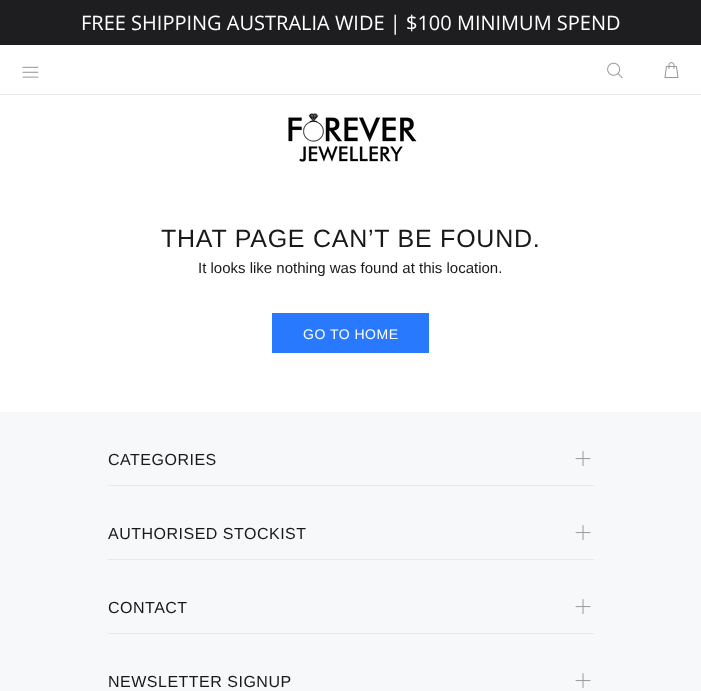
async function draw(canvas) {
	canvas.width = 701;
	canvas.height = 691;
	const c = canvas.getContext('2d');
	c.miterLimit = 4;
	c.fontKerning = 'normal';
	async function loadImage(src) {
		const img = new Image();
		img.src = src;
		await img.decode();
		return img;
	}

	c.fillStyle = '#fff';
	c.fillRect(0, 0, 701, 691);
	c.fillStyle = '#1e1e20';
	c.fillRect(0, 0, 701, 45);
	c.font = '20px Open Sans';
	c.fillStyle = '#fff';
	c.fillText('FREE SHIPPING AUSTRALIA WIDE | $100 MINIMUM SPEND', 81, 30);
	c.drawImage(await loadImage('img1.png'), 22, 66, 17, 12);
	c.drawImage(await loadImage('img2.png'), 607, 62, 16, 17);
	c.drawImage(await loadImage('img3.png'), 664, 62, 15, 17);
	c.fillStyle = '#e9e7e7';
	c.fillRect(0, 94, 701, 1);
	c.drawImage(await loadImage('img4.png'), 288, 113, 129, 49);
	c.letterSpacing = '0.75px';
	c.font = '25px Liberation Sans';
	c.fillStyle = '#191919';
	c.fillText('THAT PAGE CAN’T BE FOUND.', 161, 247);
	c.letterSpacing = '0px';
	c.font = '15px Liberation Sans';
	c.fillText('It looks like nothing was found at this location.', 198, 273);
	c.fillStyle = '#2879fe';
	c.fillRect(272, 313, 157, 40);
	c.letterSpacing = '0.5px';
	c.font = '14px Liberation Sans';
	c.fillStyle = '#fff';
	c.fillText('GO TO HOME', 303, 339);
	c.fillStyle = '#f7f8fa';
	c.fillRect(0, 412, 701, 279);
	c.fillStyle = '#e9e7e7';
	c.fillRect(108, 485, 486, 1);
	c.font = '16px Liberation Sans';
	c.fillStyle = '#191919';
	c.fillText('CATEGORIES', 108, 465);
	c.drawImage(await loadImage('img5.png'), 575, 451, 16, 15);
	c.fillStyle = '#e9e7e7';
	c.fillRect(108, 559, 486, 1);
	c.fillStyle = '#191919';
	c.fillText('AUTHORISED STOCKIST', 108, 539);
	c.drawImage(await loadImage('img5.png'), 575, 525, 16, 15);
	c.fillStyle = '#e9e7e7';
	c.fillRect(108, 633, 486, 1);
	c.fillStyle = '#191919';
	c.fillText('CONTACT', 108, 613);
	c.drawImage(await loadImage('img5.png'), 575, 599, 16, 15);
	c.fillText('NEWSLETTER SIGNUP', 108, 687);
	c.drawImage(await loadImage('img5.png'), 575, 673, 16, 15);
}

draw(document.querySelector('canvas'));
